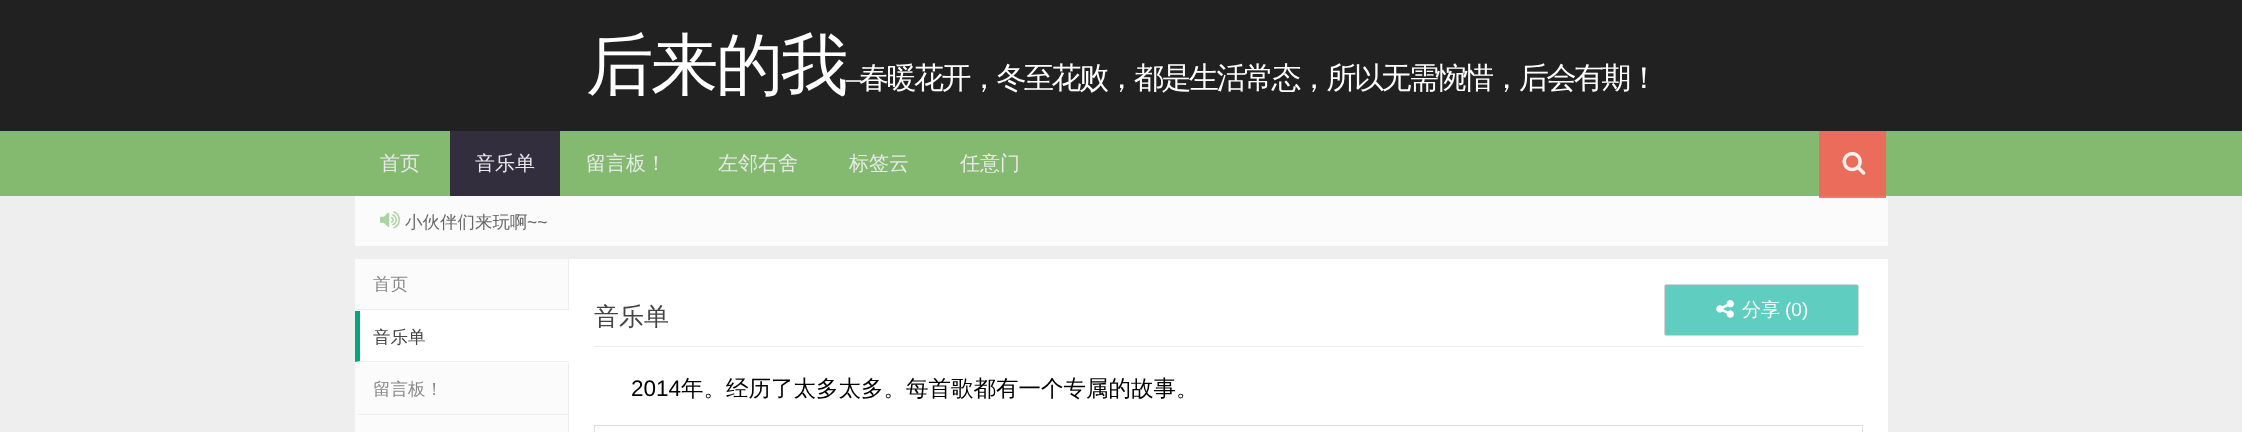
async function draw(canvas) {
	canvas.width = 2242;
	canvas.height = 432;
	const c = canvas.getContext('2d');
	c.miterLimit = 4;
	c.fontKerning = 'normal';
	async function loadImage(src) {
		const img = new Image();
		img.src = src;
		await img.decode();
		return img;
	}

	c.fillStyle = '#eee';
	c.fillRect(0, 0, 2242, 432);
	c.fillStyle = '#212121';
	c.fillRect(0, 0, 2242, 131);
	c.letterSpacing = '-2.5px';
	c.font = '500 67.5px WenQuanYi Zen Hei';
	c.fillStyle = '#fff';
	c.fillText('后来的我', 586, 88);
	c.font = '30px Liberation Serif';
	c.fillText('–', 846, 88);
	c.font = '500 30px WenQuanYi Zen Hei';
	c.fillText('春暖花开，冬至花败，都是生活常态，所以无需惋惜，后会有期！', 859, 88);
	c.fillStyle = '#83ba6f';
	c.fillRect(0, 131, 2242, 65);
	c.fillStyle = '#eb6c5b';
	c.fillRect(1819, 131, 67, 65);
	c.letterSpacing = '0px';
	c.font = '500 20px WenQuanYi Zen Hei';
	c.fillStyle = '#e9e9e9';
	c.fillText('首页', 380, 170);
	c.fillStyle = '#322e3e';
	c.fillRect(450, 131, 110, 65);
	c.fillStyle = '#e9e9e9';
	for (const [text, x, y] of [
		['音乐单', 475, 170],
		['留言板！', 586, 170],
		['左邻右舍', 718, 170],
		['标签云', 849, 170],
		['任意门', 960, 170],
	]) {
		c.fillText(text, x, y);
	}
	c.drawImage(await loadImage('img1.png'), 1842, 151, 24, 24);
	c.fillStyle = '#fbfbfb';
	c.fillRect(355, 196, 1533, 50);
	c.fillStyle = '#f77269';
	c.fillRect(1819, 196, 67, 2);
	c.drawImage(await loadImage('img2.png'), 380, 211, 20, 18);
	c.font = '500 17.5px WenQuanYi Zen Hei';
	c.fillStyle = '#666';
	c.fillText('小伙伴们来玩啊', 405, 228);
	c.font = '17.5px Liberation Sans';
	c.fillText('~~', 527, 228);
	c.fillStyle = '#fff';
	c.fillRect(569, 259, 1319, 173);
	c.fillStyle = '#fbfbfb';
	c.fillRect(355, 259, 213, 173);
	c.fillStyle = '#eee';
	c.beginPath();
	c.moveTo(568, 310);
	c.lineTo(355, 310);
	c.lineTo(360, 309);
	c.lineTo(568, 309);
	c.closePath();
	c.fill();
	c.font = '500 17.5px WenQuanYi Zen Hei';
	c.fillStyle = '#888';
	c.fillText('首页', 373, 290);
	c.fillStyle = '#fff';
	c.fillRect(355, 311, 214, 52);
	c.fillStyle = '#eee';
	c.beginPath();
	c.moveTo(569, 362);
	c.lineTo(355, 362);
	c.lineTo(360, 361);
	c.lineTo(569, 361);
	c.closePath();
	c.fill();
	c.fillStyle = '#00a67c';
	c.beginPath();
	c.moveTo(355, 362);
	c.lineTo(355, 311);
	c.lineTo(360, 311);
	c.lineTo(360, 361);
	c.closePath();
	c.fill();
	c.fillStyle = '#444';
	c.fillText('音乐单', 373, 343);
	c.fillStyle = '#eee';
	c.beginPath();
	c.moveTo(568, 415);
	c.lineTo(355, 415);
	c.lineTo(360, 414);
	c.lineTo(568, 414);
	c.closePath();
	c.fill();
	c.fillStyle = '#888';
	c.fillText('留言板！', 373, 395);
	c.fillStyle = '#eee';
	c.fillRect(594, 346, 1269, 1);
	c.font = '500 25px WenQuanYi Zen Hei';
	c.fillStyle = '#444';
	c.fillText('音乐单', 594, 325);
	c.fillStyle = '#5fcec0';
	c.beginPath();
	c.roundRect(1664.5, 284.5, 194, 51, 2);
	c.fill();
	c.strokeStyle = '#d6d6d6';
	c.stroke();
	c.drawImage(await loadImage('img3.png'), 1716, 300, 18, 18);
	c.font = '500 19px WenQuanYi Zen Hei';
	c.fillStyle = '#fff';
	c.fillText('分享', 1742, 316);
	c.font = '19px Liberation Sans';
	c.fillText('(0)', 1785, 316);
	c.font = '22.5px Liberation Sans';
	c.fillStyle = '#000';
	c.fillText('2014', 631, 396);
	c.font = '500 22.5px WenQuanYi Zen Hei';
	c.fillText('年。经历了太多太多。每首歌都有一个专属的故事。', 681, 396);
	c.strokeStyle = '#dedede';
	c.strokeRect(594.5, 425.5, 1268, 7);
}

draw(document.querySelector('canvas'));
